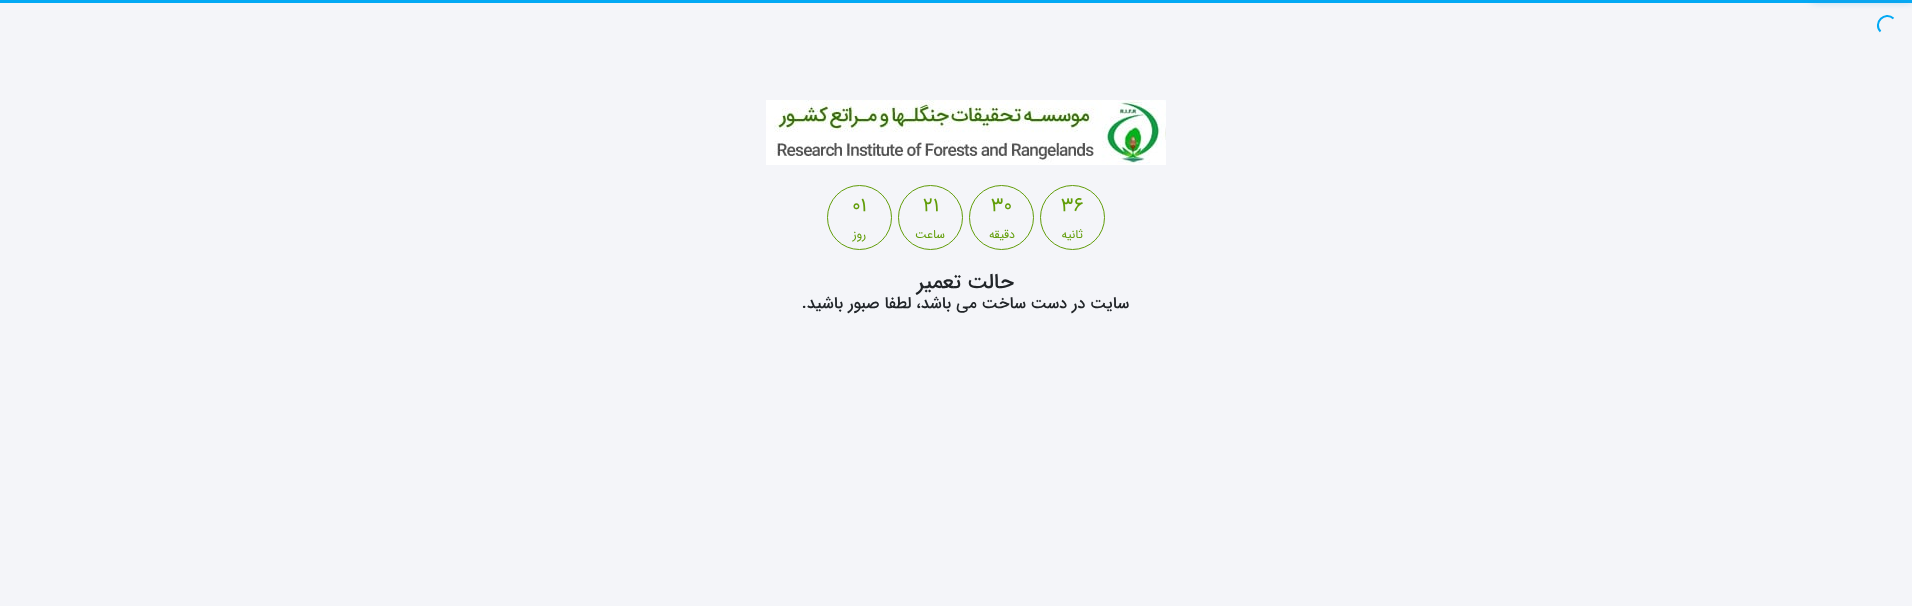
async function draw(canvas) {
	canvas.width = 1912;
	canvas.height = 606;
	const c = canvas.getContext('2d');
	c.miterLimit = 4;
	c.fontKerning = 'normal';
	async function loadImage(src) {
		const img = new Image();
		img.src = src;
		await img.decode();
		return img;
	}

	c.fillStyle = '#f4f5f9';
	c.fillRect(0, 0, 1912, 606);
	c.fillStyle = '#03a9f4';
	c.fillRect(0, 0, 1912, 3);
	c.save();
	c.beginPath();
	c.moveTo(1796, 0);
	c.lineTo(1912, 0);
	c.lineTo(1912, 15);
	c.lineTo(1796, 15);
	c.closePath();
	c.moveTo(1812.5, -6.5);
	c.lineTo(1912, -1.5);
	c.lineTo(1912, 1.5);
	c.lineTo(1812, -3.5);
	c.closePath();
	c.clip('evenodd');
	c.fillStyle = '#29d';
	c.filter = 'blur(5px)';
	c.beginPath();
	c.rect(1812, -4, 100, 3);
	c.fill();
	c.filter = 'none';
	c.restore();
	c.beginPath();
	c.moveTo(1880.5, 31.5);
	c.bezierCurveTo(1872.5, 23, 1885, 10.5, 1893.5, 18.5);
	c.strokeStyle = '#03a9f4';
	c.lineWidth = 2;
	c.stroke();
	c.drawImage(await loadImage('img1.png'), 766, 100, 400, 65);
	c.beginPath();
	c.arc(1072.5, 217.5, 32, 0, 2 * Math.PI);
	c.strokeStyle = '#619d09';
	c.lineWidth = 1;
	c.stroke();
	c.font = '20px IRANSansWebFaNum';
	c.fillStyle = '#619d09';
	c.fillText('36', 1061, 211);
	c.direction = 'rtl';
	c.font = '12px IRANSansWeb';
	c.fillText('ثانیه', 1083, 238);
	c.beginPath();
	c.arc(1001.5, 217.5, 32, 0, 2 * Math.PI);
	c.stroke();
	c.direction = 'ltr';
	c.font = '20px IRANSansWebFaNum';
	c.fillText('30', 991, 211);
	c.direction = 'rtl';
	c.font = '12px IRANSansWeb';
	c.fillText('دقیقه', 1015, 238);
	c.beginPath();
	c.arc(930.5, 217.5, 32, 0, 2 * Math.PI);
	c.stroke();
	c.direction = 'ltr';
	c.font = '20px IRANSansWebFaNum';
	c.fillText('21', 923, 211);
	c.direction = 'rtl';
	c.font = '12px IRANSansWeb';
	c.fillText('ساعت', 945, 238);
	c.beginPath();
	c.arc(859.5, 217.5, 32, 0, 2 * Math.PI);
	c.stroke();
	c.direction = 'ltr';
	c.font = '20px IRANSansWebFaNum';
	c.fillText('01', 852, 211);
	c.direction = 'rtl';
	c.font = '12px IRANSansWeb';
	c.fillText('روز', 866, 238);
	c.font = '500 21px IRANSansWeb';
	c.fillStyle = '#212529';
	c.fillText('حالت تعمیر', 1014, 288);
	c.font = '500 16.4px IRANSansWeb';
	c.fillText('سایت در دست ساخت می باشد، لطفا صبور باشید.', 1129, 308);
}

draw(document.querySelector('canvas'));
